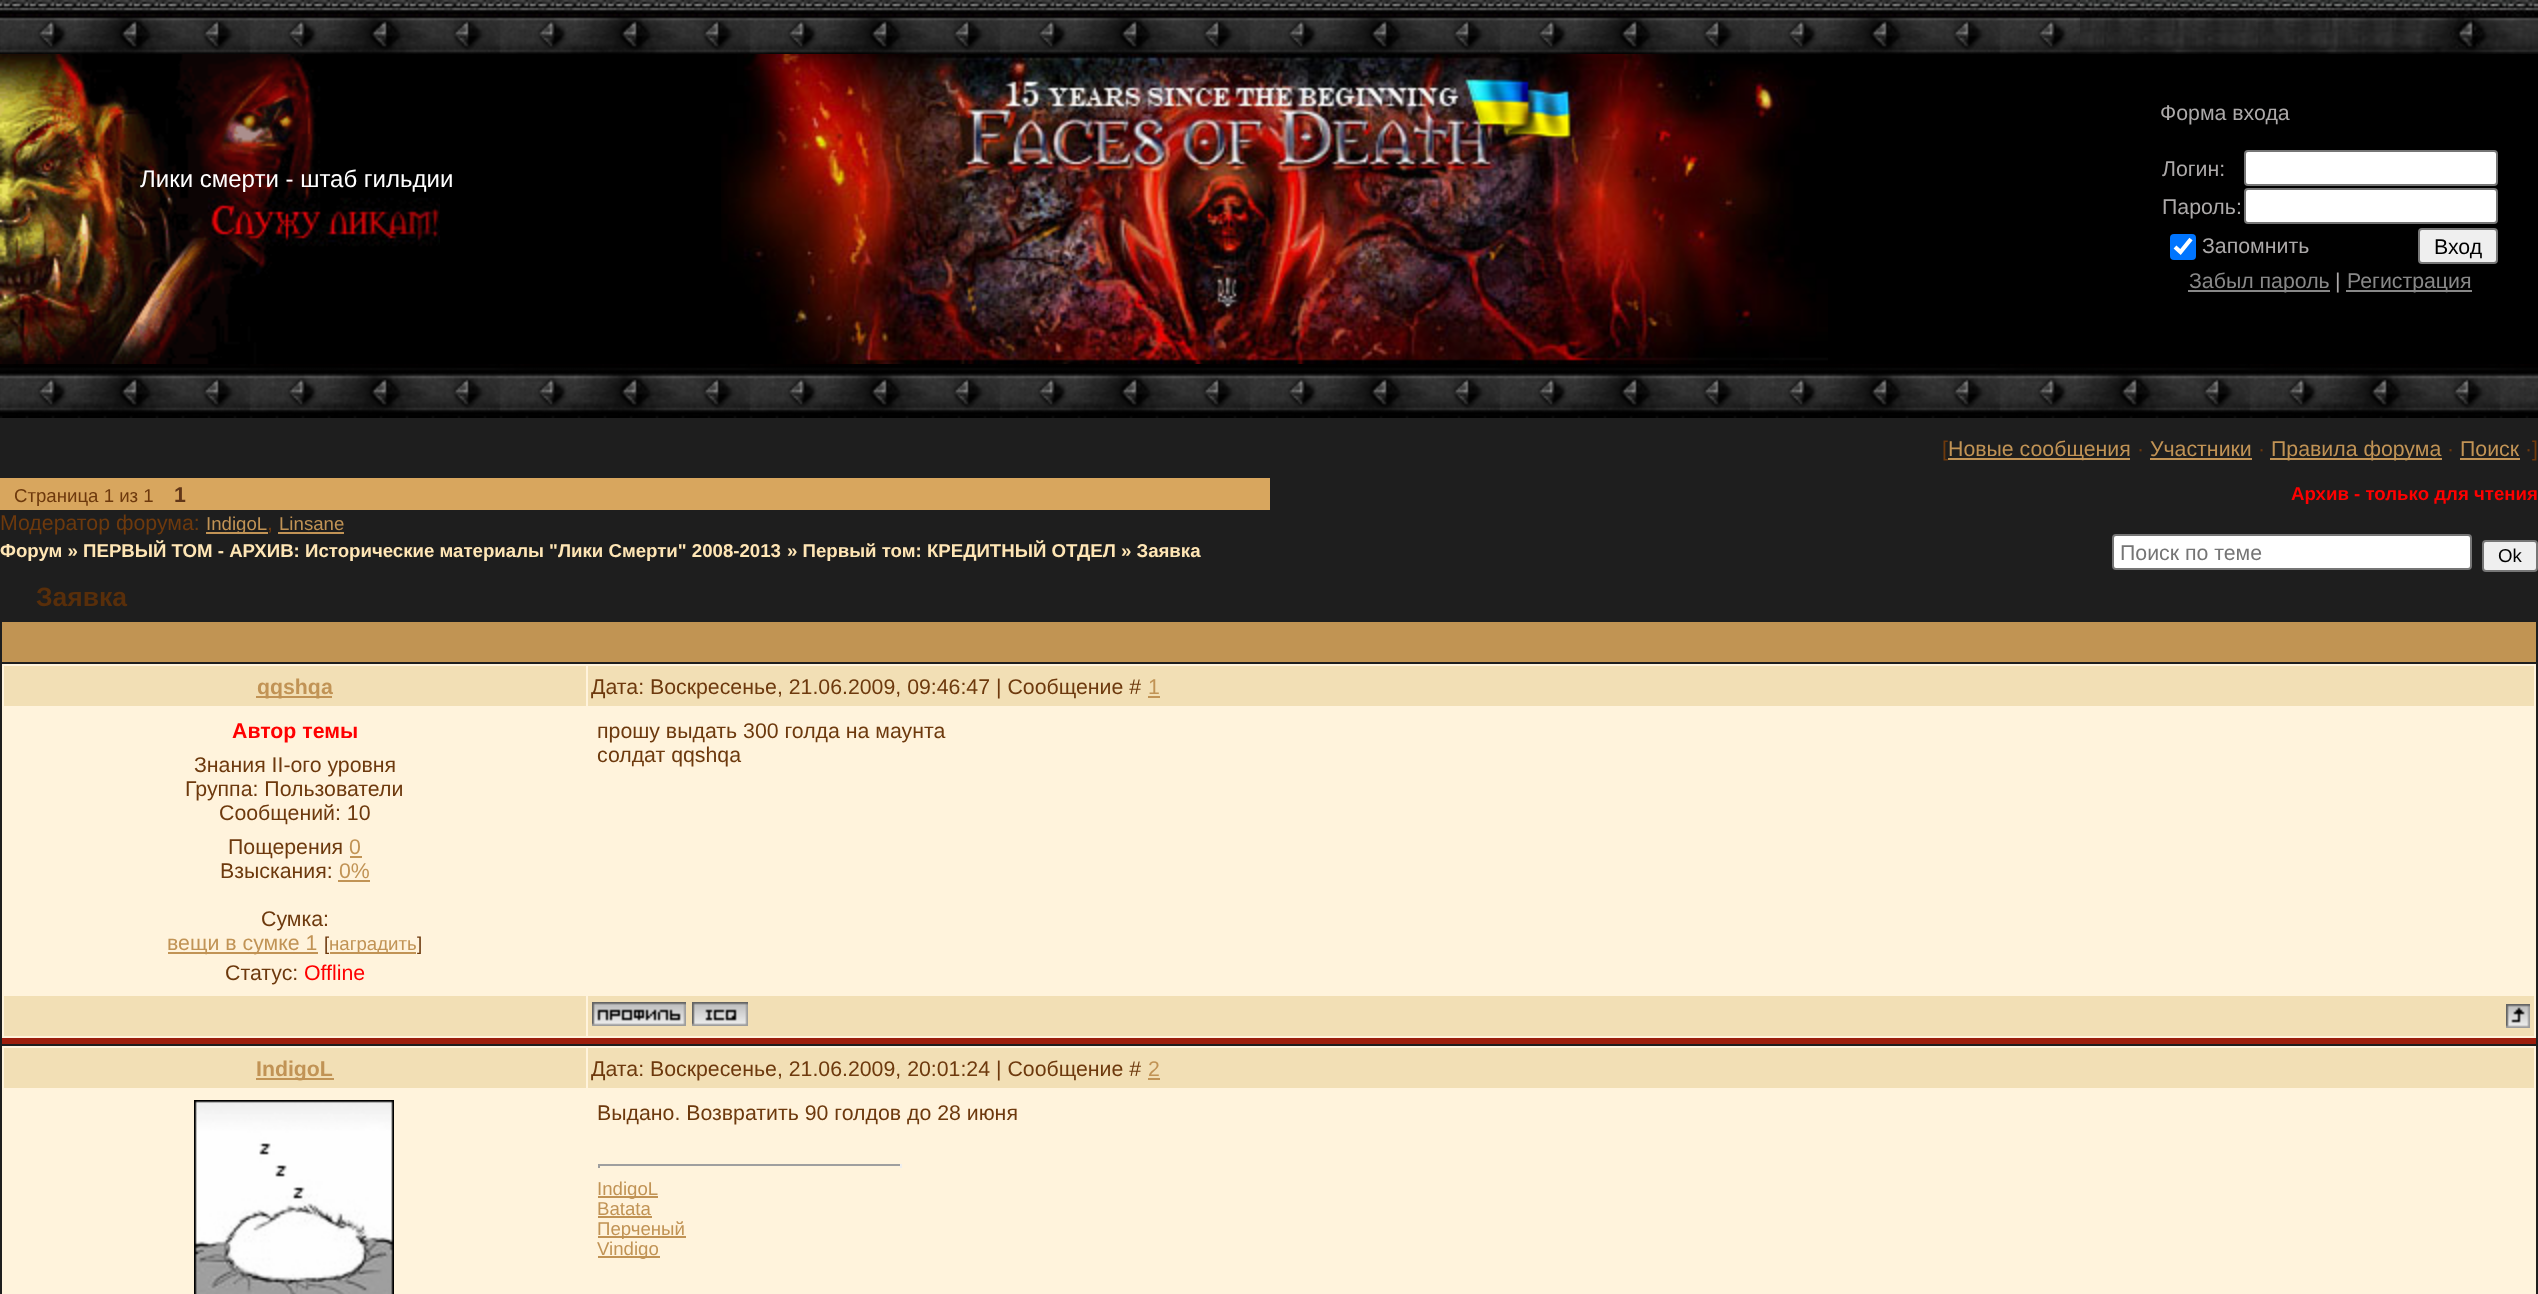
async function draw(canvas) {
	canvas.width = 2538;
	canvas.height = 1294;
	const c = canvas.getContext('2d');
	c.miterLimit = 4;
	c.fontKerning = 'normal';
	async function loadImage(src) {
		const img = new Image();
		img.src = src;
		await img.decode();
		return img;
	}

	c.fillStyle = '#1e1e1e';
	c.fillRect(0, 0, 2538, 1294);
	c.fillStyle = '#000';
	c.fillRect(440, 54, 2098, 310);
	c.drawImage(await loadImage('img1.png'), 0, 0, 2080, 54);
	c.drawImage(await loadImage('img2.png'), 2080, 0, 458, 54);
	c.drawImage(await loadImage('img3.png'), 0, 54, 440, 310);
	c.font = '24px Liberation Sans';
	c.fillStyle = '#fff';
	c.fillText('Лики смерти - штаб гильдии', 140, 187);
	c.drawImage(await loadImage('img4.png'), 721, 54, 1107, 310);
	c.font = '21.3px Liberation Sans';
	c.fillStyle = '#aca9a9';
	c.fillText('Форма входа', 2160, 120);
	c.fillText('Логин:', 2162, 176);
	c.fillStyle = '#fff';
	c.beginPath();
	c.roundRect(2245, 151, 252, 34, 3);
	c.fill();
	c.strokeStyle = '#767676';
	c.lineWidth = 2;
	c.stroke();
	c.fillStyle = '#aca9a9';
	c.fillText('Пароль:', 2162, 214);
	c.fillStyle = '#fff';
	c.beginPath();
	c.roundRect(2245, 189, 252, 34, 3);
	c.fill();
	c.stroke();
	c.fillStyle = '#0075ff';
	c.beginPath();
	c.roundRect(2170, 234, 26, 26, 4);
	c.fill();
	c.beginPath();
	c.moveTo(2175, 247);
	c.lineTo(2180.5, 252);
	c.lineTo(2191, 239);
	c.strokeStyle = '#fff';
	c.lineWidth = 4.2;
	c.stroke();
	c.fillStyle = '#aca9a9';
	c.fillText('Запомнить', 2202, 253);
	c.fillStyle = '#efefef';
	c.beginPath();
	c.roundRect(2419, 229, 78, 34, 3);
	c.fill();
	c.strokeStyle = '#767676';
	c.lineWidth = 2;
	c.stroke();
	c.fillStyle = '#000';
	c.fillText('Вход', 2434, 254);
	c.fillStyle = '#888';
	c.fillRect(2188, 290, 142, 2);
	c.fillText('Забыл пароль', 2189, 288);
	c.fillStyle = '#aca9a9';
	c.fillText('|', 2335, 288);
	c.fillStyle = '#888';
	c.fillRect(2346, 290, 126, 2);
	c.fillText('Регистрация', 2347, 288);
	c.drawImage(await loadImage('img5.png'), 0, 364, 2538, 54);
	c.fillStyle = '#6d390d';
	c.fillText('[', 1942, 456);
	c.fillStyle = '#c19355';
	c.fillRect(1948, 458, 182, 2);
	c.fillText('Новые сообщения', 1948, 456);
	c.fillStyle = '#6d390d';
	c.fillText('·', 2137, 456);
	c.fillStyle = '#c19355';
	c.fillText('Участники', 2150, 456);
	c.fillRect(2150, 458, 102, 2);
	c.fillStyle = '#6d390d';
	c.fillText('·', 2258, 456);
	c.fillStyle = '#c19355';
	c.fillRect(2270, 458, 172, 2);
	c.fillText('Правила форума', 2271, 456);
	c.fillStyle = '#6d390d';
	c.fillText('·', 2447, 456);
	c.fillStyle = '#c19355';
	c.fillText('Поиск', 2460, 456);
	c.fillRect(2460, 458, 60, 2);
	c.fillStyle = '#6d390d';
	c.fillText('·]', 2525, 456);
	c.fillStyle = '#d8a65e';
	c.fillRect(0, 478, 1270, 32);
	c.font = '18.65px Liberation Sans';
	c.fillStyle = '#6d390d';
	c.fillText('Страница 1 из 1', 14, 502);
	c.font = 'bold 21.3px Liberation Sans';
	c.fillStyle = '#613618';
	c.fillText('1', 174, 502);
	c.font = 'bold 18.65px Liberation Sans';
	c.fillStyle = '#f00';
	c.fillText('Архив - только для чтения', 2291, 500);
	c.font = '21.3px Liberation Sans';
	c.fillStyle = '#6d390d';
	c.fillText('Модератор форума:', 0, 530);
	c.fillStyle = '#c19355';
	c.fillRect(206, 532, 62, 2);
	c.font = '18.65px Liberation Sans';
	c.fillText('IndigoL', 206, 530);
	c.font = '21.3px Liberation Sans';
	c.fillStyle = '#6d390d';
	c.fillText(',', 267, 530);
	c.fillStyle = '#c19355';
	c.fillRect(278, 532, 66, 2);
	c.font = '18.65px Liberation Sans';
	c.fillText('Linsane', 279, 530);
	c.font = 'bold 18.65px Liberation Sans';
	c.fillStyle = '#ffe6b5';
	c.fillText('Форум » ПЕРВЫЙ ТОМ - АРХИВ: Исторические материалы "Лики Смерти" 2008-2013', 0, 557);
	c.fillText('» Первый том: КРЕДИТНЫЙ ОТДЕЛ » Заявка', 787, 557);
	c.fillStyle = '#fff';
	c.beginPath();
	c.roundRect(2113, 535, 358, 34, 3);
	c.fill();
	c.stroke();
	c.font = '21.3px Liberation Sans';
	c.fillStyle = '#757575';
	c.fillText('Поиск по теме', 2120, 560);
	c.fillStyle = '#efefef';
	c.beginPath();
	c.roundRect(2483, 541, 54, 30, 3);
	c.fill();
	c.stroke();
	c.font = '18.65px Liberation Sans';
	c.fillStyle = '#000';
	c.fillText('Ok', 2498, 562);
	c.font = 'bold 26.5px Liberation Sans';
	c.fillStyle = '#582e0a';
	c.fillText('Заявка', 36, 606);
	for (const [x, y, w, h, color] of [
		[2, 622, 2534, 40, '#c19453'],
		[2, 664, 2534, 374, '#fff3dc'],
		[2, 1038, 2534, 6, '#9d1e0d'],
		[4, 666, 582, 40, '#f2dfb5'],
		[256, 696, 76, 2, '#c19355'],
	]) {
		c.fillStyle = color;
		c.fillRect(x, y, w, h);
	}
	c.font = 'bold 21.3px Liberation Sans';
	c.fillText('qqshqa', 257, 694);
	c.fillStyle = '#f2dfb5';
	c.fillRect(588, 666, 1946, 40);
	c.font = '21.3px Liberation Sans';
	c.fillStyle = '#6d390d';
	c.fillText('Дата: Воскресенье, 21.06.2009, 09:46:47 | Сообщение #', 591, 694);
	c.fillStyle = '#c19355';
	c.fillText('1', 1148, 694);
	c.fillRect(1148, 696, 12, 2);
	c.font = 'bold 21.3px Liberation Sans';
	c.fillStyle = '#f00';
	c.fillText('Автор темы', 232, 738);
	c.font = '21.3px Liberation Sans';
	c.fillStyle = '#6d390d';
	for (const [text, x, y] of [
		['Знания II-ого уровня', 194, 772],
		['Группа: Пользователи', 185, 796],
		['Сообщений: 10', 219, 820],
		['Пощерения', 228, 854],
	]) {
		c.fillText(text, x, y);
	}
	c.fillStyle = '#c19355';
	c.fillText('0', 349, 854);
	c.fillRect(350, 856, 12, 2);
	c.fillStyle = '#6d390d';
	c.fillText('Взыскания:', 220, 878);
	c.fillStyle = '#c19355';
	c.fillText('0%', 339, 878);
	c.fillRect(338, 880, 32, 2);
	c.fillStyle = '#6d390d';
	c.fillText('Сумка:', 261, 926);
	c.fillStyle = '#c19355';
	c.fillRect(168, 952, 150, 2);
	c.fillText('вещи в сумке 1', 167, 950);
	c.font = '18.65px Liberation Sans';
	c.fillStyle = '#6d390d';
	c.fillText('[', 324, 950);
	c.fillStyle = '#c19355';
	c.fillRect(330, 952, 86, 2);
	c.fillText('наградить', 329, 950);
	c.fillStyle = '#6d390d';
	c.fillText(']', 417, 950);
	c.font = '21.3px Liberation Sans';
	c.fillText('Статус:', 225, 980);
	c.fillStyle = '#f00';
	c.fillText('Offline', 304, 980);
	c.fillStyle = '#6d390d';
	c.fillText('прошу выдать 300 голда на маунта', 597, 738);
	c.fillText('солдат qqshqa', 597, 762);
	c.fillStyle = '#f2dfb5';
	c.fillRect(4, 996, 582, 40);
	c.fillRect(588, 996, 1946, 40);
	c.drawImage(await loadImage('img6.png'), 592, 1002, 94, 24);
	c.drawImage(await loadImage('img7.png'), 692, 1002, 56, 24);
	c.drawImage(await loadImage('img8.png'), 2506, 1004, 24, 24);
	for (const [x, y, w, h, color] of [
		[2, 1046, 2534, 248, '#fff3dc'],
		[4, 1048, 582, 40, '#f2dfb5'],
		[256, 1078, 78, 2, '#c19355'],
	]) {
		c.fillStyle = color;
		c.fillRect(x, y, w, h);
	}
	c.font = 'bold 21.3px Liberation Sans';
	c.fillText('IndigoL', 256, 1076);
	c.fillStyle = '#f2dfb5';
	c.fillRect(588, 1048, 1946, 40);
	c.font = '21.3px Liberation Sans';
	c.fillStyle = '#6d390d';
	c.fillText('Дата: Воскресенье, 21.06.2009, 20:01:24 | Сообщение #', 591, 1076);
	c.fillStyle = '#c19355';
	c.fillText('2', 1148, 1076);
	c.fillRect(1148, 1078, 12, 2);
	c.drawImage(await loadImage('img9.png'), 194, 1100, 200, 194);
	c.fillStyle = '#6d390d';
	c.fillText('Выдано. Возвратить 90 голдов до 28 июня', 597, 1120);
	for (const [x, y, w, h, color] of [
		[598, 1164, 304, 2, '#9f9f9f'],
		[900, 1164, 2, 4, '#eee'],
		[598, 1164, 2, 4, '#9f9f9f'],
		[598, 1196, 60, 2, '#c19355'],
	]) {
		c.fillStyle = color;
		c.fillRect(x, y, w, h);
	}
	c.font = '18.65px Liberation Sans';
	c.fillText('IndigoL', 597, 1195);
	c.fillText('Batata', 597, 1215);
	c.fillRect(598, 1216, 54, 2);
	c.fillRect(598, 1236, 88, 2);
	c.fillText('Перченый', 597, 1235);
	c.fillRect(598, 1256, 62, 2);
	c.fillText('Vindigo', 597, 1255);
}

draw(document.querySelector('canvas'));
